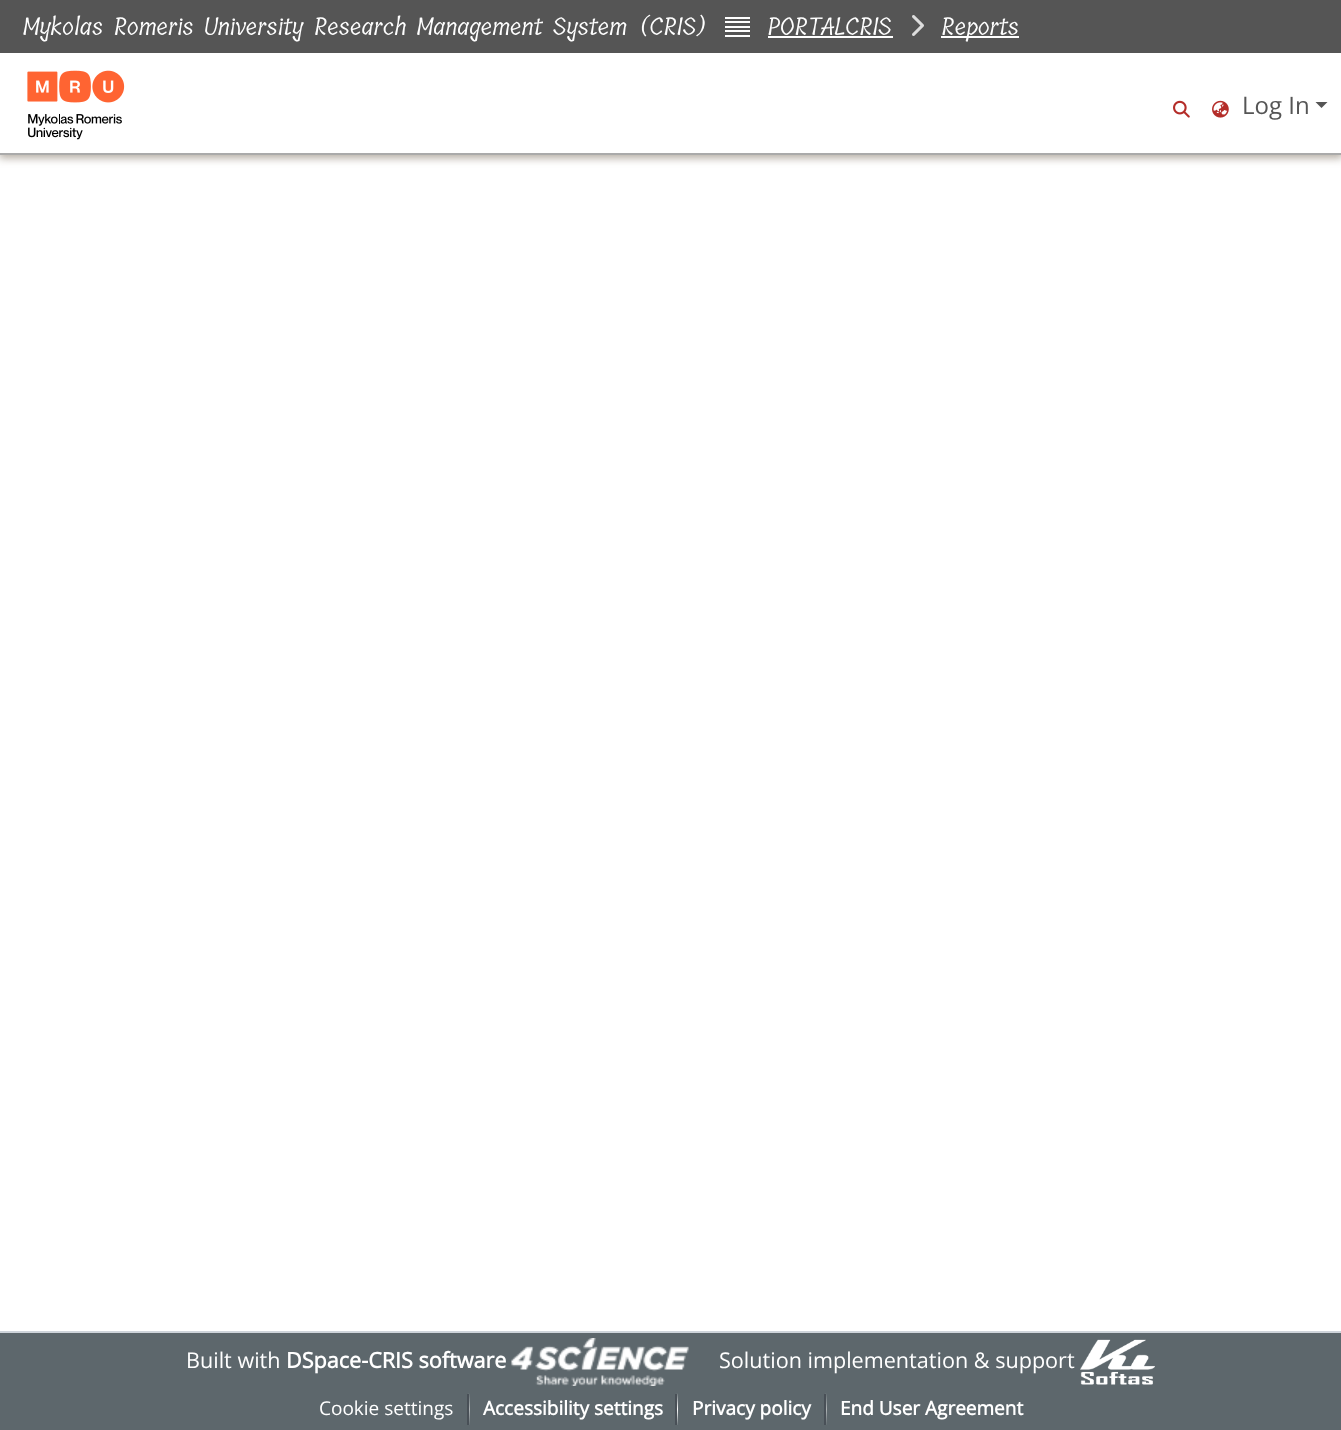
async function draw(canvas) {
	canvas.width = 1341;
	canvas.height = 1430;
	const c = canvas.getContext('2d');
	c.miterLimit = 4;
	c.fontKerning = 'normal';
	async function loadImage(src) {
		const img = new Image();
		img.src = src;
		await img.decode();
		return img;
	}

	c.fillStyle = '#fff';
	c.fillRect(0, 0, 1341, 1430);
	c.fillStyle = '#68574480';
	c.filter = 'blur(4.5px)';
	c.beginPath();
	c.rect(-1, 0, 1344, 158);
	c.fill();
	c.filter = 'none';
	for (const [x, y, w, h, color] of [
		[0, 53, 1341, 100, '#fff'],
		[0, 153, 1341, 2, '#aaa'],
		[0, 0, 1341, 53, '#555'],
	]) {
		c.fillStyle = color;
		c.fillRect(x, y, w, h);
	}
	c.font = '24px Tillana';
	c.fillStyle = '#fff';
	c.fillText('Mykolas Romeris University Research Management System (CRIS)', 23, 35);
	for (const [x, y, w, h, color] of [
		[725, 17, 25, 2, '#fff'],
		[725, 21, 25, 2, '#fff'],
		[725, 26, 25, 2, '#fff'],
		[725, 30, 25, 2, '#fff'],
		[725, 35, 25, 2, '#fff'],
	]) {
		c.fillStyle = color;
		c.fillRect(x, y, w, h);
	}
	c.fillText('PORTALCRIS', 767, 35);
	c.fillRect(768, 36, 125, 2);
	c.drawImage(await loadImage('img1.png'), 912, 15, 12, 21);
	c.fillRect(941, 36, 78, 2);
	c.fillText('Reports', 941, 35);
	c.drawImage(await loadImage('img2.png'), 27, 70, 98, 70);
	c.drawImage(await loadImage('img3.png'), 1173, 100, 17, 18);
	c.drawImage(await loadImage('img4.png'), 1212, 100, 17, 18);
	c.font = '24px Open Sans';
	c.fillStyle = '#555';
	c.fillText('Log In', 1242, 114);
	c.beginPath();
	c.moveTo(1315.5, 102);
	c.lineTo(1327.5, 102);
	c.lineTo(1321.5, 108);
	c.closePath();
	c.fill();
	c.fillStyle = '#5d676c';
	c.fillRect(0, 1333, 1341, 97);
	c.fillStyle = '#ced4da';
	c.fillRect(0, 1331, 1341, 2);
	c.font = '21.6px Open Sans';
	c.fillStyle = '#fff';
	c.fillText('Built with', 186, 1368);
	c.font = 'bold 21.6px Open Sans';
	c.fillText('DSpace-CRIS software', 286, 1368);
	c.drawImage(await loadImage('img5.png'), 511, 1338, 178, 48);
	c.font = '21.6px Open Sans';
	c.fillText('Solution implementation & support', 719, 1368);
	c.drawImage(await loadImage('img6.png'), 1080, 1339, 75, 46);
	c.drawImage(await loadImage('img7.png'), 468, 1393, 2, 32);
	c.font = '19px Open Sans';
	c.fillText('Cookie settings', 319, 1415);
	c.fillStyle = '#495057';
	c.fillRect(467, 1394, 2, 31);
	c.drawImage(await loadImage('img8.png'), 676, 1393, 2, 32);
	c.font = 'bold 19px Open Sans';
	c.fillStyle = '#fff';
	c.fillText('Accessibility settings', 483, 1415);
	c.fillStyle = '#495057';
	c.fillRect(675, 1394, 2, 31);
	c.drawImage(await loadImage('img9.png'), 825, 1393, 2, 32);
	c.fillStyle = '#fff';
	c.fillText('Privacy policy', 692, 1415);
	c.fillStyle = '#495057';
	c.fillRect(824, 1394, 2, 31);
	c.fillStyle = '#fff';
	c.fillText('End User Agreement', 840, 1415);
}

draw(document.querySelector('canvas'));
